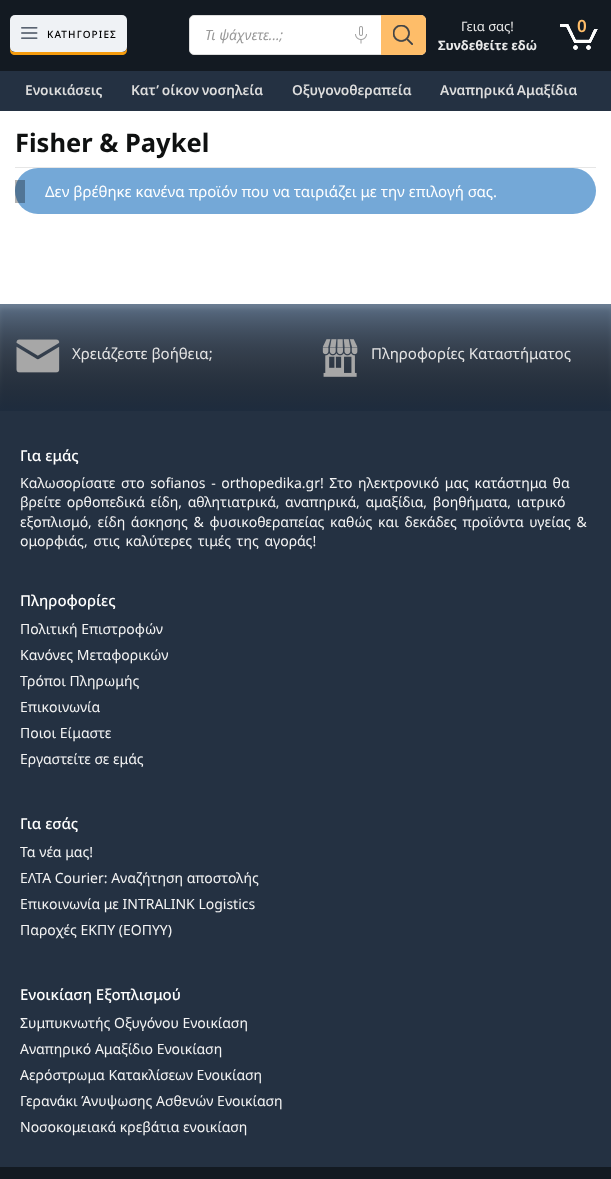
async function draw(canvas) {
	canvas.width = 611;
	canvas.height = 1179;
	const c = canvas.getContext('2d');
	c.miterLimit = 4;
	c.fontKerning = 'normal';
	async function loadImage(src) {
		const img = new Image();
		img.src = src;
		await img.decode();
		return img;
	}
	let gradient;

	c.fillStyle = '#f9f9f9';
	c.fillRect(0, 0, 611, 1179);
	c.fillStyle = '#131a22';
	c.fillRect(0, 0, 611, 71);
	c.fillStyle = '#f59c0e';
	c.beginPath();
	c.moveTo(10, 47);
	c.lineTo(10, 50);
	c.bezierCurveTo(10, 53, 12, 55, 15, 55);
	c.lineTo(122, 55);
	c.bezierCurveTo(125, 55, 127, 53, 127, 50);
	c.lineTo(127, 47);
	c.bezierCurveTo(127, 50, 125, 52, 122, 52);
	c.lineTo(15, 52);
	c.bezierCurveTo(12, 52, 10, 50, 10, 47);
	c.closePath();
	c.fill();
	c.fillStyle = '#eff2f5';
	c.beginPath();
	c.roundRect(10, 15, 117, 37, 5);
	c.fill();
	c.drawImage(await loadImage('img1.png'), 21, 27, 17, 12);
	c.letterSpacing = '1.1px';
	c.font = '500 10px Noto Sans';
	c.fillStyle = '#000';
	c.fillText('ΚΑΤΗΓΟΡΙΕΣ', 47, 38);
	c.fillStyle = '#fff';
	c.beginPath();
	c.roundRect(189.5, 15.5, 236, 39, 4.5);
	c.fill();
	c.strokeStyle = '#ddd';
	c.stroke();
	c.letterSpacing = '0px';
	c.font = 'italic 14px Noto Sans';
	c.fillStyle = '#999';
	c.fillText('Τι ψάχνετε...;', 205, 40);
	c.drawImage(await loadImage('img2.png'), 355, 26, 12, 18);
	c.fillStyle = '#febd69';
	c.beginPath();
	c.roundRect(381, 15, 45, 40, [0, 5, 5, 0]);
	c.fill();
	c.drawImage(await loadImage('img3.png'), 393, 25, 20, 20);
	c.font = '13px Noto Sans';
	c.fillStyle = '#eaeaea';
	c.fillText('Γεια σας!', 461, 31);
	c.font = 'bold 13px Noto Sans';
	c.fillText('Συνδεθείτε εδώ', 438, 50);
	c.drawImage(await loadImage('img4.png'), 560, 24, 38, 26);
	c.font = '600 17px Noto Sans';
	c.fillStyle = '#febd69';
	c.fillText('0', 577, 32);
	c.fillStyle = '#243142';
	c.fillRect(0, 71, 611, 40);
	c.font = '600 13.75px Noto Sans';
	c.fillStyle = '#ddd';
	c.fillText('Ενοικιάσεις', 25, 95);
	c.wordSpacing = '-1px';
	c.fillText('Κατ’ οίκον νοσηλεία', 131, 95);
	c.wordSpacing = '0px';
	c.fillText('Οξυγονοθεραπεία', 292, 95);
	c.wordSpacing = '-1px';
	c.fillText('Αναπηρικά Αμαξίδια', 440, 95);
	c.fillStyle = '#15202fe8';
	c.filter = 'blur(2px)';
	c.beginPath();
	c.rect(0, 309, 611, 118);
	c.fill();
	c.filter = 'none';
	c.fillStyle = '#fff';
	c.fillRect(0, 111, 611, 193);
	c.wordSpacing = '0px';
	c.font = 'bold 25.5px Noto Sans';
	c.fillStyle = '#0f1111';
	c.fillText('Fisher & Paykel', 15, 152);
	c.fillStyle = '#e6e6e6';
	c.fillRect(15, 167, 581, 1);
	c.fillStyle = '#74a8d7';
	c.beginPath();
	c.roundRect(15, 168, 581, 46, 23);
	c.fill();
	c.fillStyle = '#0000004d';
	c.fillRect(15, 180, 10, 23);
	c.font = '15px Noto Sans';
	c.fillStyle = '#fff';
	c.fillText('Δεν βρέθηκε κανένα προϊόν που να ταιριάζει με την επιλογή σας.', 45, 197);
	c.fillStyle = '#7686ba40';
	c.filter = 'blur(1px)';
	c.beginPath();
	c.rect(0, 311, 611, 92);
	c.fill();
	c.filter = 'none';
	c.fillStyle = '#3b4654de';
	c.fillRect(0, 304, 611, 107);
	gradient = c.createLinearGradient(306, 411, 306, 304);
	gradient.addColorStop(0, '#1e2c3e');
	gradient.addColorStop(0.5, '#131a223b');
	gradient.addColorStop(1, '#8eadd069');
	c.fillStyle = gradient;
	c.fillRect(0, 304, 611, 107);
	c.drawImage(await loadImage('img5.png'), 16, 339, 44, 34);
	c.fillStyle = '#e4e4e4';
	c.fillText('Χρειάζεστε βοήθεια;', 72, 359);
	c.drawImage(await loadImage('img6.png'), 322, 339, 36, 38);
	c.fillText('Πληροφορίες Καταστήματος', 371, 359);
	c.fillStyle = '#243142';
	c.fillRect(0, 411, 611, 756);
	c.font = '500 15px Noto Sans';
	c.fillStyle = '#fff';
	c.fillText('Για εμάς', 20, 461);
	c.wordSpacing = '2px';
	c.font = '14px Noto Sans';
	c.fillStyle = '#f4f4f4';
	for (const [text, x, y] of [
		['Καλωσορίσατε στο sofianos - orthopedika.gr! Στο ηλεκτρονικό μας κατάστημα θα', 20, 488],
		['βρείτε ορθοπεδικά είδη, αθλητιατρικά, αναπηρικά, αμαξίδια, βοηθήματα, ιατρικό', 20, 507],
		['εξοπλισμό, είδη άσκησης & φυσικοθεραπείας καθώς και δεκάδες προϊόντα υγείας &', 20, 527],
		['ομορφιάς, στις καλύτερες τιμές της αγοράς!', 20, 546],
	]) {
		c.fillText(text, x, y);
	}
	c.wordSpacing = '0px';
	c.font = '500 15px Noto Sans';
	c.fillStyle = '#fff';
	c.fillText('Πληροφορίες', 20, 606);
	c.font = '14px Noto Sans';
	c.fillStyle = '#f4f4f4';
	for (const [text, x, y] of [
		['Πολιτική Επιστροφών', 20, 634],
		['Κανόνες Μεταφορικών', 20, 660],
		['Τρόποι Πληρωμής', 20, 686],
		['Επικοινωνία', 20, 712],
		['Ποιοι Είμαστε', 20, 738],
		['Εργαστείτε σε εμάς', 20, 764],
	]) {
		c.fillText(text, x, y);
	}
	c.font = '500 15px Noto Sans';
	c.fillStyle = '#fff';
	c.fillText('Για εσάς', 20, 829);
	c.font = '14px Noto Sans';
	c.fillStyle = '#f4f4f4';
	for (const [text, x, y] of [
		['Τα νέα μας!', 20, 857],
		['ΕΛΤΑ Courier: Αναζήτηση αποστολής', 20, 883],
		['Επικοινωνία με INTRALINK Logistics', 20, 909],
		['Παροχές ΕΚΠΥ (ΕΟΠΥΥ)', 20, 935],
	]) {
		c.fillText(text, x, y);
	}
	c.font = '500 15px Noto Sans';
	c.fillStyle = '#fff';
	c.fillText('Ενοικίαση Εξοπλισμού', 20, 1000);
	c.font = '14px Noto Sans';
	c.fillStyle = '#f4f4f4';
	for (const [text, x, y] of [
		['Συμπυκνωτής Οξυγόνου Ενοικίαση', 20, 1028],
		['Αναπηρικό Αμαξίδιο Ενοικίαση', 20, 1054],
		['Αερόστρωμα Κατακλίσεων Ενοικίαση', 20, 1080],
		['Γερανάκι Άνυψωσης Ασθενών Ενοικίαση', 20, 1106],
		['Νοσοκομειακά κρεβάτια ενοικίαση', 20, 1132],
	]) {
		c.fillText(text, x, y);
	}
	c.fillStyle = '#131a22';
	c.fillRect(0, 1167, 611, 12);
}

draw(document.querySelector('canvas'));
